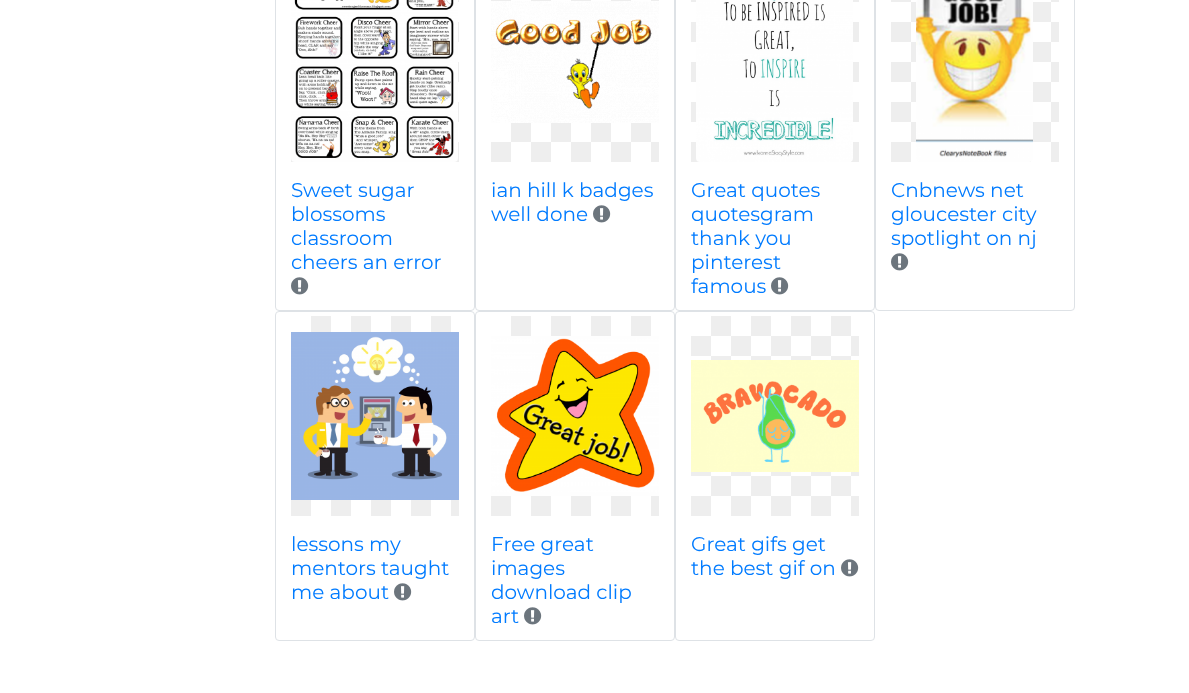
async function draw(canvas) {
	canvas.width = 1189;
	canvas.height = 693;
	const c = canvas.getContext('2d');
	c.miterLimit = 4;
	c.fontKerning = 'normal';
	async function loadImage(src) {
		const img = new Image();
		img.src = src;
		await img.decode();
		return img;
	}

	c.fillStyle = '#fff';
	c.fillRect(0, 0, 1189, 693);
	c.beginPath();
	c.roundRect(275.5, -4.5, 199, 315, 3.5);
	c.strokeStyle = '#dee2e6';
	c.stroke();
	c.drawImage(await loadImage('img1.png'), 291, 0, 168, 162);
	c.drawImage(await loadImage('img2.png'), 291, 0, 167, 162);
	c.font = '100 20px Montserrat';
	c.fillStyle = '#007bff';
	for (const [text, x, y] of [
		['Sweet sugar', 291, 197],
		['blossoms', 291, 221],
		['classroom', 291, 245],
		['cheers an error', 291, 269],
	]) {
		c.fillText(text, x, y);
	}
	c.drawImage(await loadImage('img3.png'), 291, 277, 18, 18);
	c.beginPath();
	c.roundRect(475.5, -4.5, 199, 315, 3.5);
	c.stroke();
	c.drawImage(await loadImage('img1.png'), 491, 0, 168, 162);
	c.drawImage(await loadImage('img4.png'), 491, 1, 168, 122);
	c.fillText('ian hill k badges', 491, 197);
	c.fillText('well done', 491, 221);
	c.drawImage(await loadImage('img3.png'), 593, 205, 18, 18);
	c.beginPath();
	c.roundRect(675.5, -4.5, 199, 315, 3.5);
	c.stroke();
	c.drawImage(await loadImage('img1.png'), 691, 0, 168, 162);
	c.drawImage(await loadImage('img5.png'), 696, 0, 157, 162);
	for (const [text, x, y] of [
		['Great quotes', 691, 197],
		['quotesgram', 691, 221],
		['thank you', 691, 245],
		['pinterest', 691, 269],
		['famous', 691, 293],
	]) {
		c.fillText(text, x, y);
	}
	c.drawImage(await loadImage('img3.png'), 771, 277, 18, 18);
	c.beginPath();
	c.roundRect(875.5, -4.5, 199, 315, 3.5);
	c.stroke();
	c.drawImage(await loadImage('img1.png'), 891, 0, 168, 162);
	c.drawImage(await loadImage('img6.png'), 916, 0, 117, 162);
	for (const [text, x, y] of [
		['Cnbnews net', 891, 197],
		['gloucester city', 891, 221],
		['spotlight on nj', 891, 245],
	]) {
		c.fillText(text, x, y);
	}
	c.drawImage(await loadImage('img3.png'), 891, 253, 18, 18);
	c.beginPath();
	c.roundRect(275.5, 311.5, 199, 329, 3.5);
	c.stroke();
	c.drawImage(await loadImage('img7.png'), 291, 316, 168, 200);
	c.drawImage(await loadImage('img8.png'), 291, 332, 168, 168);
	for (const [text, x, y] of [
		['lessons my', 291, 551],
		['mentors taught', 291, 575],
		['me about', 291, 599],
	]) {
		c.fillText(text, x, y);
	}
	c.drawImage(await loadImage('img3.png'), 394, 583, 18, 18);
	c.beginPath();
	c.roundRect(475.5, 311.5, 199, 329, 3.5);
	c.stroke();
	c.drawImage(await loadImage('img7.png'), 491, 316, 168, 200);
	c.drawImage(await loadImage('img9.png'), 491, 336, 168, 160);
	for (const [text, x, y] of [
		['Free great', 491, 551],
		['images', 491, 575],
		['download clip', 491, 599],
		['art', 491, 623],
	]) {
		c.fillText(text, x, y);
	}
	c.drawImage(await loadImage('img3.png'), 524, 607, 18, 18);
	c.beginPath();
	c.roundRect(675.5, 311.5, 199, 329, 3.5);
	c.stroke();
	c.drawImage(await loadImage('img7.png'), 691, 316, 168, 200);
	c.drawImage(await loadImage('img10.png'), 691, 360, 168, 112);
	c.fillText('Great gifs get', 691, 551);
	c.fillText('the best gif on', 691, 575);
	c.drawImage(await loadImage('img3.png'), 841, 559, 18, 18);
}

draw(document.querySelector('canvas'));
